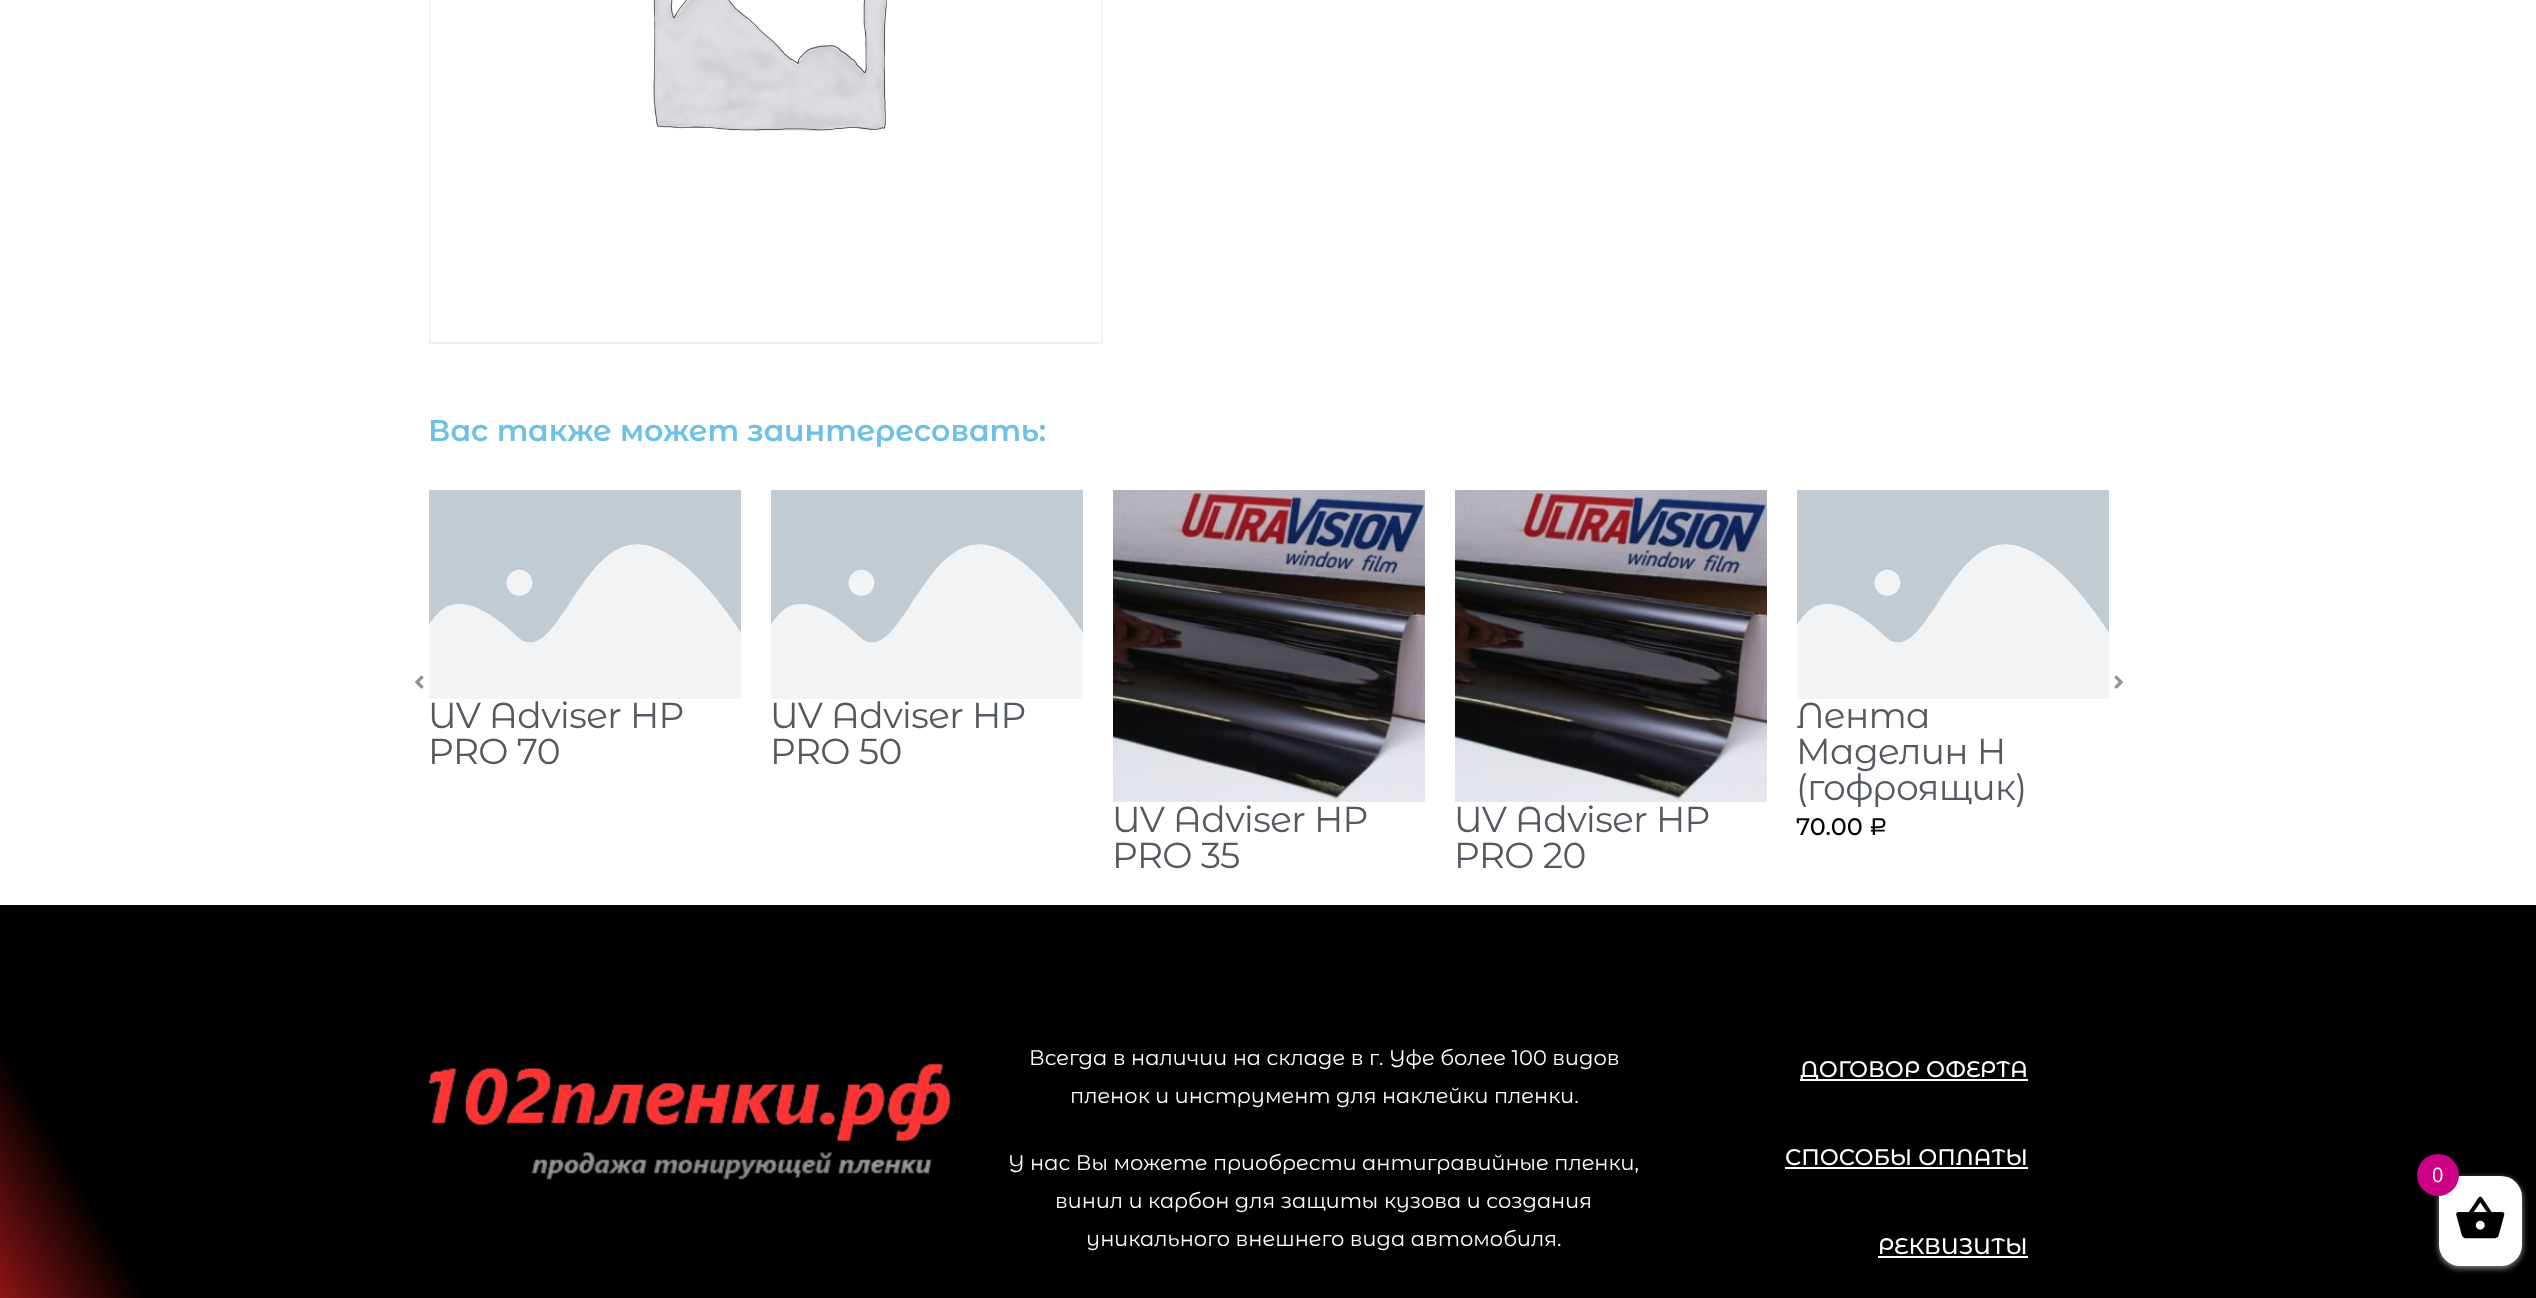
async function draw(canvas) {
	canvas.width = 2536;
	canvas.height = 1298;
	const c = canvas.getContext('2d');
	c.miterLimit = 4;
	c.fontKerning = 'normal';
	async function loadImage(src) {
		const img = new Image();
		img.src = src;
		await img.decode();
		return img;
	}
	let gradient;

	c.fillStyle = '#fff';
	c.fillRect(0, 0, 2536, 1298);
	c.strokeStyle = '#f2f2f2';
	c.lineWidth = 2;
	c.strokeRect(430, -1, 672, 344);
	c.drawImage(await loadImage('img1.png'), 430, 0, 457, 341);
	c.font = '600 30px Montserrat Alternates';
	c.fillStyle = '#6ec1e4';
	c.fillText('Вас также может заинтересовать:', 428, 441);
	c.drawImage(await loadImage('img2.png'), 415, 675, 9, 14);
	c.drawImage(await loadImage('img3.png'), 2114, 675, 9, 14);
	c.drawImage(await loadImage('img4.png'), 429, 490, 312, 209);
	c.letterSpacing = '-0.6px';
	c.font = '36px Montserrat Alternates';
	c.fillStyle = '#54595f';
	c.fillText('UV Adviser HP', 428, 728);
	c.fillText('PRO 70', 428, 764);
	c.drawImage(await loadImage('img4.png'), 771, 490, 312, 209);
	c.fillText('UV Adviser HP', 770, 728);
	c.fillText('PRO 50', 770, 764);
	c.drawImage(await loadImage('img5.png'), 1113, 490, 312, 312);
	c.fillText('UV Adviser HP', 1112, 832);
	c.fillText('PRO 35', 1112, 868);
	c.drawImage(await loadImage('img6.png'), 1455, 490, 312, 312);
	c.fillText('UV Adviser HP', 1454, 832);
	c.fillText('PRO 20', 1454, 868);
	c.drawImage(await loadImage('img7.png'), 1797, 490, 312, 209);
	for (const [text, x, y] of [
		['Лента', 1796, 728],
		['Маделин Н', 1796, 764],
		['(гофроящик)', 1796, 800],
	]) {
		c.fillText(text, x, y);
	}
	c.letterSpacing = '0px';
	c.font = '500 24px Montserrat Alternates';
	c.fillStyle = '#000';
	c.fillText('70.00', 1796, 835);
	c.font = '24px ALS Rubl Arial';
	c.fillText('Р', 1869, 835);
	gradient = c.createLinearGradient(2334, 554, 202, 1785);
	gradient.addColorStop(0.92, '#000');
	gradient.addColorStop(1, '#da1f1f');
	c.fillStyle = gradient;
	c.fillRect(0, 905, 2536, 393);
	c.drawImage(await loadImage('img8.png'), 428, 1063, 523, 117);
	c.font = '21px Montserrat Alternates';
	c.fillStyle = '#fff';
	for (const [text, x, y] of [
		['Всегда в наличии на складе в г. Уфе более 100 видов', 1029, 1065],
		['пленок и инструмент для наклейки пленки.', 1070, 1103],
		['У нас Вы можете приобрести антигравийные пленки,', 1008, 1170],
		['винил и карбон для защиты кузова и создания', 1055, 1208],
		['уникального внешнего вида автомобиля.', 1086, 1246],
	]) {
		c.fillText(text, x, y);
	}
	c.fillRect(1800, 1079, 228, 2);
	c.font = '500 22.5px Montserrat Alternates';
	c.fillText('ДОГОВОР ОФЕРТА', 1800, 1077);
	c.fillText('СПОСОБЫ ОПЛАТЫ', 1785, 1165);
	c.fillRect(1785, 1167, 243, 2);
	c.fillText('РЕКВИЗИТЫ', 1878, 1254);
	c.fillRect(1878, 1256, 150, 2);
	c.fillStyle = '#929292';
	c.filter = 'blur(3px)';
	c.beginPath();
	c.roundRect(2439, 1178, 83, 90, 21);
	c.fill();
	c.filter = 'none';
	c.fillStyle = '#fff';
	c.beginPath();
	c.roundRect(2439, 1176, 83, 90, 21);
	c.fill();
	c.fillStyle = '#cc0086';
	c.beginPath();
	c.arc(2438, 1175, 21, 0, 2 * Math.PI);
	c.fill();
	c.font = '20px Open Sans';
	c.fillStyle = '#fff';
	c.fillText('0', 2432, 1182);
	c.drawImage(await loadImage('img9.png'), 2456, 1196, 49, 43);
}

draw(document.querySelector('canvas'));
